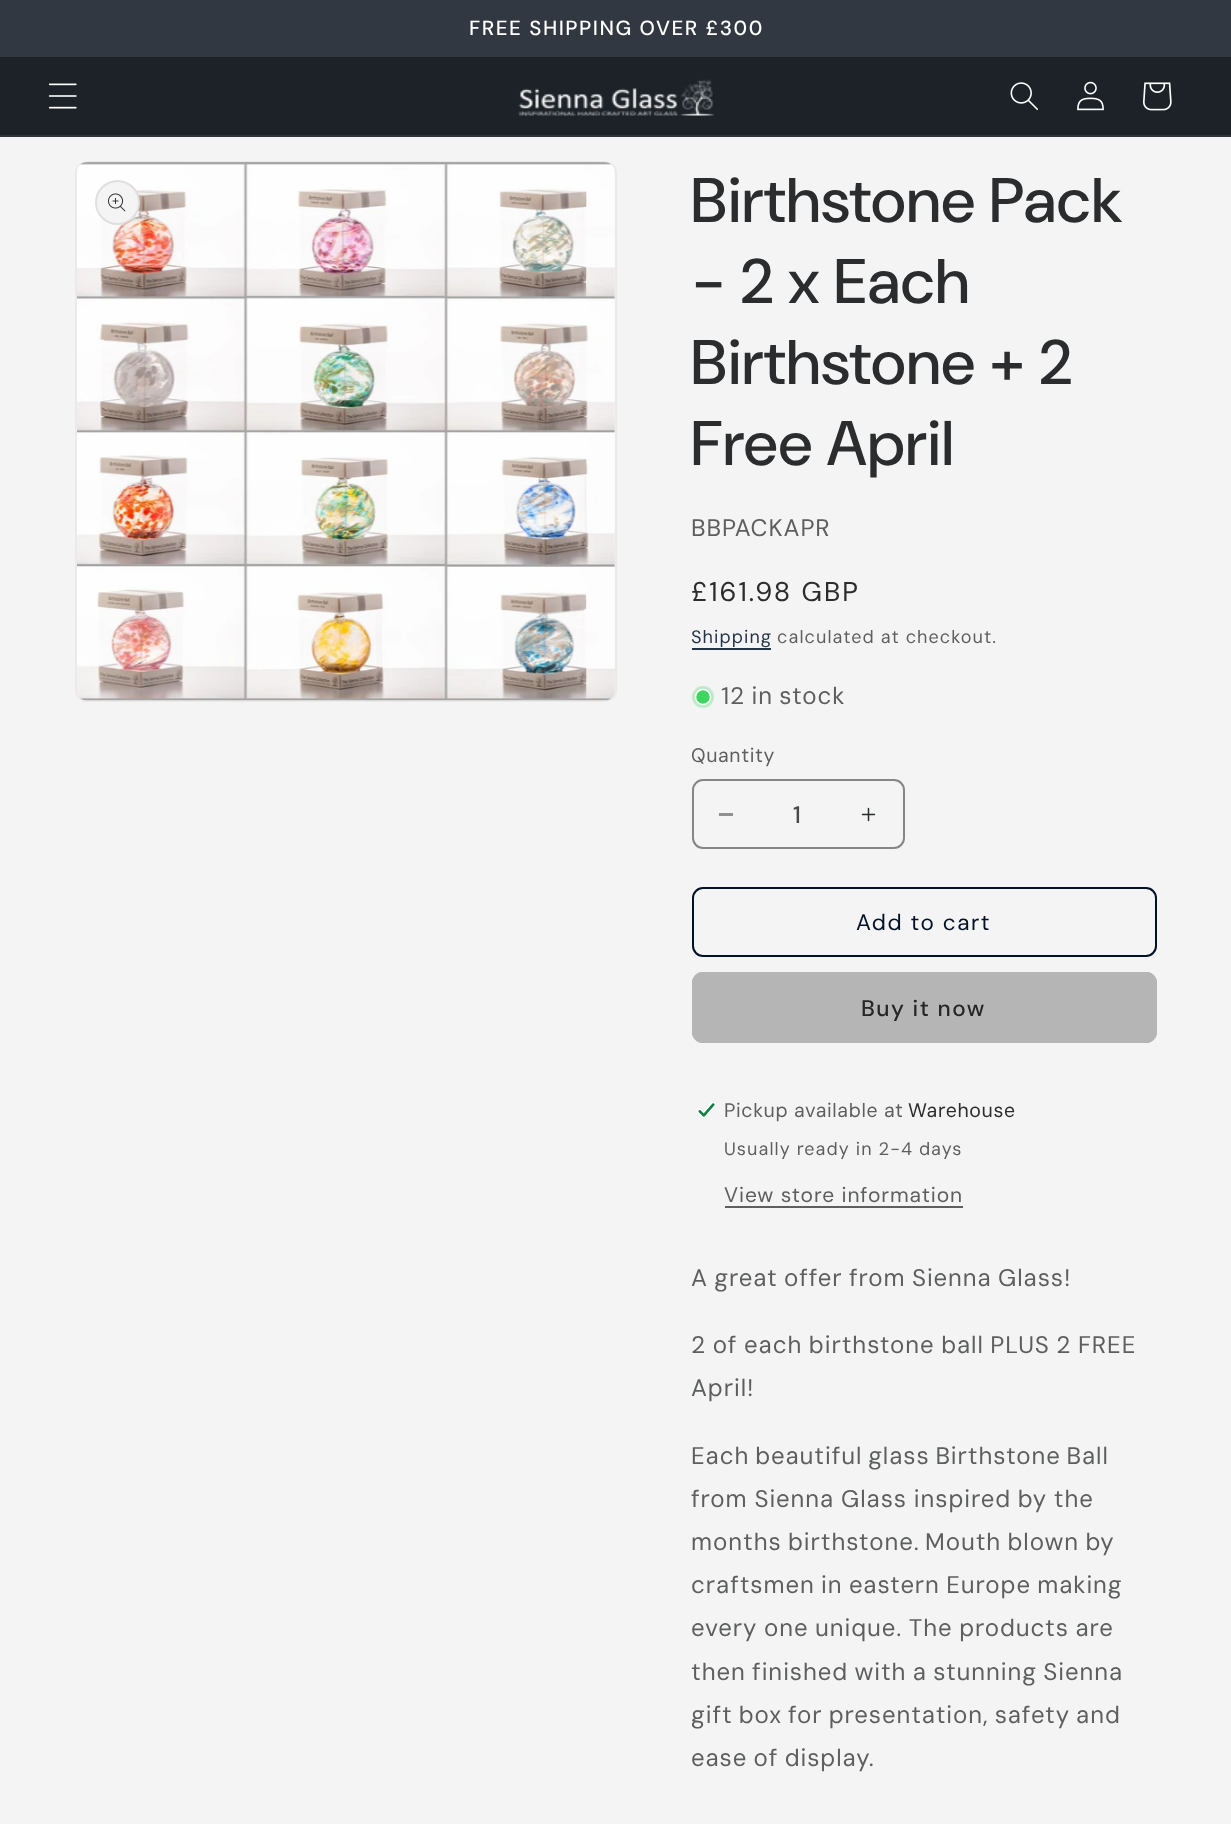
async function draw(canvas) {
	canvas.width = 1231;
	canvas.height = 1824;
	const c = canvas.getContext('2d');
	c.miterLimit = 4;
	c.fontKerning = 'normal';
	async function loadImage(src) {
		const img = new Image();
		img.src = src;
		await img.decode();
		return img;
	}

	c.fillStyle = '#f4f4f4';
	c.fillRect(0, 0, 1231, 1824);
	c.fillStyle = '#323841';
	c.fillRect(0, 0, 1231, 57);
	c.letterSpacing = '1.5px';
	c.font = '500 20.5px "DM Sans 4"';
	c.fillStyle = '#fff';
	c.fillText('FREE SHIPPING OVER £300', 469, 35);
	c.fillStyle = '#1c2228';
	c.fillRect(0, 57, 1231, 78);
	c.fillStyle = '#2e3439';
	c.fillRect(0, 135, 1231, 2);
	c.drawImage(await loadImage('img1.png'), 48, 83, 29, 26);
	c.drawImage(await loadImage('img2.png'), 518, 79, 196, 37);
	c.drawImage(await loadImage('img3.png'), 1010, 82, 28, 28);
	c.drawImage(await loadImage('img4.png'), 1077, 81, 27, 30);
	c.drawImage(await loadImage('img5.png'), 1143, 82, 29, 29);
	c.beginPath();
	c.roundRect(76, 162, 540, 539, 11);
	c.strokeStyle = '#eaeaea';
	c.lineWidth = 2;
	c.stroke();
	c.drawImage(await loadImage('img6.png'), 77, 162, 538, 539);
	c.fillStyle = '#f4f4f4';
	c.beginPath();
	c.arc(117.5, 202.5, 22.5, 0, 2 * Math.PI);
	c.fill();
	c.beginPath();
	c.arc(117.5, 202.5, 21.5, 0, 2 * Math.PI);
	c.strokeStyle = '#2b2c2d1a';
	c.stroke();
	c.drawImage(await loadImage('img7.png'), 108, 193, 18, 19);
	c.letterSpacing = '1px';
	c.font = '500 63px DM Sans';
	c.fillStyle = '#2b2c2d';
	for (const [text, x, y] of [
		['Birthstone Pack', 691, 222],
		['- 2 x Each', 691, 303],
		['Birthstone + 2', 691, 384],
		['Free April', 691, 465],
	]) {
		c.fillText(text, x, y);
	}
	c.letterSpacing = '0.9px';
	c.font = '24px DM Sans';
	c.fillStyle = '#5d5e5f';
	c.fillText('BBPACKAPR', 691, 536);
	c.letterSpacing = '2px';
	c.font = '27px "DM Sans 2"';
	c.fillStyle = '#2b2c2d';
	c.fillText('£161.98 GBP', 691, 601);
	c.letterSpacing = '1.05px';
	c.font = '18px DM Sans';
	c.fillStyle = '#253347';
	c.fillText('Shipping', 691, 643);
	c.fillRect(692, 648, 79, 2);
	c.fillStyle = '#5d5e5f';
	c.fillText('calculated at checkout.', 777, 643);
	c.fillStyle = '#bdebc8';
	c.beginPath();
	c.arc(703, 697, 11, 0, 2 * Math.PI);
	c.fill();
	c.fillStyle = '#3ed660';
	c.beginPath();
	c.arc(703, 697, 7.5, 0, 2 * Math.PI);
	c.fill();
	c.strokeStyle = '#fff';
	c.lineWidth = 1.5;
	c.stroke();
	c.letterSpacing = '0.9px';
	c.wordSpacing = '-1px';
	c.font = '24px DM Sans';
	c.fillStyle = '#5d5e5f';
	c.fillText('12 in stock', 721, 704);
	c.letterSpacing = '0.6px';
	c.wordSpacing = '0px';
	c.font = '19.5px DM Sans';
	c.fillText('Quantity', 691, 762);
	c.fillStyle = '#909091';
	c.fillRect(719, 813, 14, 3);
	c.drawImage(await loadImage('img8.png'), 861, 807, 15, 15);
	c.beginPath();
	c.roundRect(693, 780, 211, 68, 10);
	c.strokeStyle = '#858687';
	c.lineWidth = 2;
	c.stroke();
	c.letterSpacing = '0px';
	c.font = '500 24px "DM Sans 2"';
	c.fillStyle = '#494a4b';
	c.fillText('1', 793, 823);
	c.beginPath();
	c.roundRect(693, 888, 463, 68, 10);
	c.strokeStyle = '#001128';
	c.stroke();
	c.letterSpacing = '1.5px';
	c.font = '22.5px "DM Sans 4"';
	c.fillStyle = '#001128';
	c.fillText('Add to cart', 856, 930);
	c.fillStyle = '#b5b5b5';
	c.beginPath();
	c.roundRect(692, 972, 465, 71, 11);
	c.fill();
	c.beginPath();
	c.roundRect(693, 973, 463, 69, 10);
	c.strokeStyle = '#b5b5b5';
	c.stroke();
	c.font = '500 22.5px "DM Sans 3"';
	c.fillStyle = '#262626';
	c.fillText('Buy it now', 861, 1016);
	c.drawImage(await loadImage('img9.png'), 697, 1102, 19, 16);
	c.letterSpacing = '0.6px';
	c.font = '19.5px DM Sans';
	c.fillStyle = '#5d5e5f';
	c.fillText('Pickup available at', 724, 1117);
	c.fillStyle = '#2b2c2d';
	c.fillText('Warehouse', 908, 1117);
	c.letterSpacing = '1.05px';
	c.font = '18px DM Sans';
	c.fillStyle = '#5d5e5f';
	c.fillText('Usually ready in 2-4 days', 724, 1155);
	c.letterSpacing = '0.9px';
	c.font = '21px "DM Sans 3"';
	c.fillText('View store information', 724, 1202);
	c.fillRect(725, 1206, 238, 2);
	c.wordSpacing = '-1px';
	c.font = '24px DM Sans';
	c.fillText('A great offer from Sienna Glass!', 691, 1286);
	c.wordSpacing = '-0.75px';
	c.fillText('2 of each birthstone ball PLUS 2 FREE', 691, 1353);
	c.wordSpacing = '0px';
	c.fillText('April!', 691, 1396);
	c.wordSpacing = '-1.5px';
	c.fillText('Each beautiful glass Birthstone Ball', 691, 1464);
	c.wordSpacing = '-0.5px';
	c.fillText('from Sienna Glass inspired by the', 691, 1507);
	c.wordSpacing = '-1px';
	for (const [text, x, y] of [
		['months birthstone.', 691, 1550],
		['Mouth blown by', 925, 1550],
		['craftsmen in eastern Europe making', 691, 1593],
	]) {
		c.fillText(text, x, y);
	}
	c.wordSpacing = '-0.75px';
	c.fillText('every one unique. The products are', 691, 1636);
	c.wordSpacing = '-1px';
	c.fillText('then finished with a stunning Sienna', 691, 1680);
	c.wordSpacing = '-1.25px';
	c.fillText('gift box for presentation, safety and', 691, 1723);
	c.wordSpacing = '-1px';
	c.fillText('ease of display.', 691, 1766);
}

draw(document.querySelector('canvas'));
